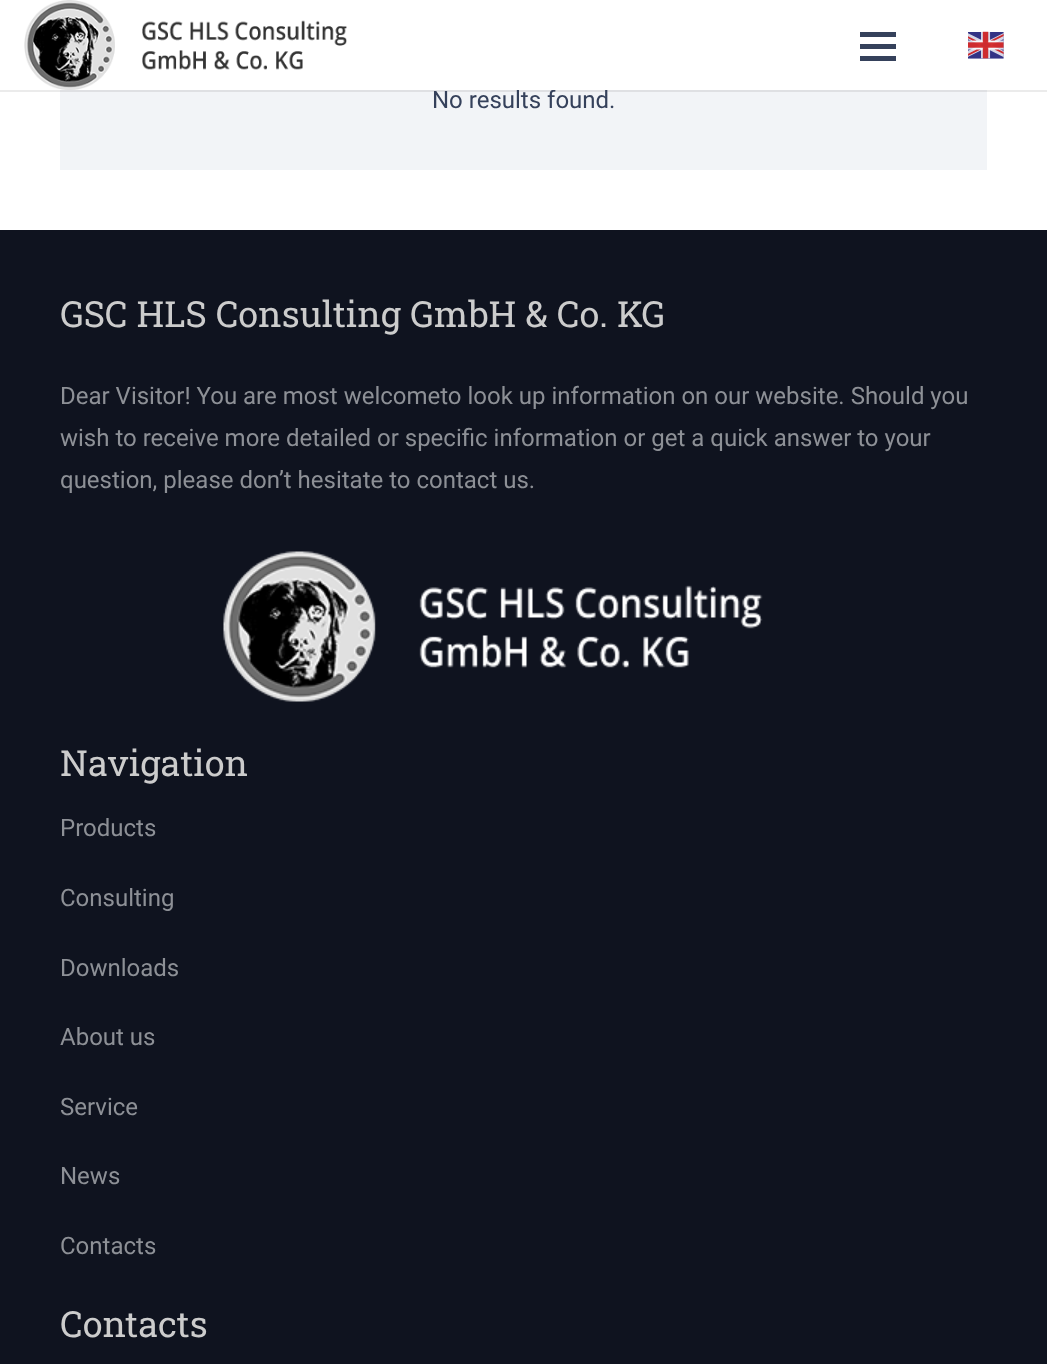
async function draw(canvas) {
	canvas.width = 1047;
	canvas.height = 1364;
	const c = canvas.getContext('2d');
	c.miterLimit = 4;
	c.fontKerning = 'normal';
	async function loadImage(src) {
		const img = new Image();
		img.src = src;
		await img.decode();
		return img;
	}

	c.fillStyle = '#fff';
	c.fillRect(0, 0, 1047, 1364);
	c.fillStyle = '#f2f4f7';
	c.fillRect(60, 90, 927, 80);
	c.fillStyle = '#00000014';
	c.fillRect(0, 90, 1047, 2);
	c.font = '24px Roboto';
	c.fillStyle = '#35415b';
	c.fillText('No results found.', 432, 108);
	c.fillStyle = '#fff';
	c.fillRect(552, 89, 4, 1);
	c.drawImage(await loadImage('img1.png'), 24, 0, 323, 90);
	for (const [x, y, w, h, color] of [
		[860, 44, 36, 5, '#35415b'],
		[860, 32, 36, 5, '#35415b'],
		[860, 56, 36, 5, '#35415b'],
	]) {
		c.fillStyle = color;
		c.fillRect(x, y, w, h);
	}
	c.drawImage(await loadImage('img2.png'), 968, 31, 36, 28);
	c.fillStyle = '#0f131f';
	c.fillRect(0, 230, 1047, 1134);
	c.font = '36px Roboto Slab';
	c.fillStyle = '#ccc';
	c.fillText('GSC HLS Consulting GmbH & Co. KG', 60, 327);
	c.font = '24px Roboto';
	c.fillStyle = '#8d9096';
	for (const [text, x, y] of [
		['Dear Visitor! You are most welcometo look up information on our website. Should you', 60, 404],
		['wish to receive more detailed or specific information or get a quick answer to your', 60, 446],
		['question, please don’t hesitate to contact us.', 60, 488],
	]) {
		c.fillText(text, x, y);
	}
	c.drawImage(await loadImage('img3.png'), 223, 551, 540, 151);
	c.font = '36px Roboto Slab';
	c.fillStyle = '#ccc';
	c.fillText('Navigation', 60, 776);
	c.font = '24px Roboto';
	c.fillStyle = '#8d9096';
	for (const [text, x, y] of [
		['Products', 60, 836],
		['Consulting', 60, 906],
		['Downloads', 60, 976],
		['About us', 60, 1045],
		['Service', 60, 1115],
		['News', 60, 1184],
		['Contacts', 60, 1254],
	]) {
		c.fillText(text, x, y);
	}
	c.font = '36px Roboto Slab';
	c.fillStyle = '#ccc';
	c.fillText('Contacts', 60, 1337);
}

draw(document.querySelector('canvas'));
